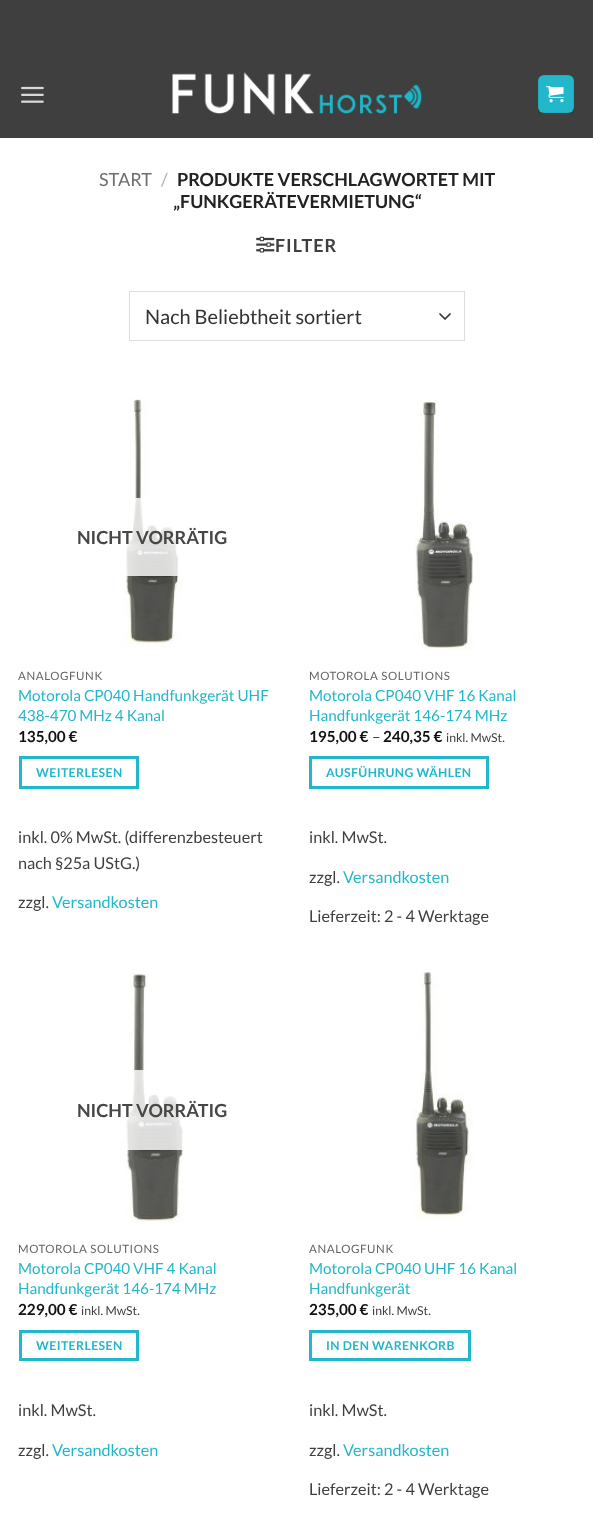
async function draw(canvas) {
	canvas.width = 593;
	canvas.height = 1537;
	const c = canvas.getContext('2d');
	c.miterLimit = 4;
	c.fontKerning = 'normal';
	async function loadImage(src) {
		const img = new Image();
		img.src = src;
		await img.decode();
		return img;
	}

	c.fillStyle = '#fff';
	c.fillRect(0, 0, 593, 1537);
	c.fillStyle = '#3f3f3f';
	c.fillRect(0, 0, 593, 138);
	c.drawImage(await loadImage('img1.png'), 21, 86, 23, 17);
	c.drawImage(await loadImage('img2.png'), 172, 72, 250, 43);
	c.fillStyle = '#22b7cb';
	c.beginPath();
	c.roundRect(538, 75, 36, 38, 6);
	c.fill();
	c.strokeStyle = '#0000000d';
	c.strokeRect(538.5, 75.5, 35, 37);
	c.drawImage(await loadImage('img3.png'), 546, 86, 18, 17);
	c.font = '18px Lato';
	c.fillStyle = '#6e6e6e';
	c.fillText('START', 99, 186);
	c.fillStyle = '#b2b2b2';
	c.fillText('/', 161, 186);
	c.font = 'bold 18px Lato';
	c.fillStyle = '#222';
	c.fillText('PRODUKTE VERSCHLAGWORTET MIT', 177, 186);
	c.fillText('„FUNKGERÄTEVERMIETUNG“', 173, 208);
	c.drawImage(await loadImage('img4.png'), 256, 236, 19, 17);
	c.letterSpacing = '1px';
	c.fillStyle = '#3f3f3f';
	c.fillText('FILTER', 275, 252);
	c.beginPath();
	c.moveTo(440, 314);
	c.lineTo(445, 319);
	c.lineTo(450, 314);
	c.strokeStyle = '#333';
	c.lineWidth = 1.7;
	c.lineCap = 'round';
	c.lineJoin = 'round';
	c.stroke();
	c.strokeStyle = '#ddd';
	c.lineWidth = 1;
	c.lineJoin = 'miter';
	c.strokeRect(129.5, 291.5, 335, 49);
	c.letterSpacing = '0px';
	c.font = '20px Lato';
	c.fillStyle = '#333';
	c.fillText('Nach Beliebtheit sortiert', 145, 324);
	c.drawImage(await loadImage('img5.png'), 122, 399, 61, 248);
	c.fillStyle = '#ffffffcf';
	c.fillRect(122, 498, 61, 78);
	c.font = 'bold 18px Lato';
	c.fillStyle = '#474747';
	c.fillText('NICHT VORRÄTIG', 77, 544);
	c.letterSpacing = '0.6px';
	c.font = '11.5px Lato';
	c.fillStyle = '#656565';
	c.fillText('ANALOGFUNK', 18, 680);
	c.letterSpacing = '0px';
	c.font = '15.25px Lato';
	c.fillStyle = '#22b7cb';
	c.fillText('Motorola CP040 Handfunkgerät UHF', 18, 701);
	c.fillText('438-470 MHz 4 Kanal', 18, 721);
	c.font = 'bold 15.25px Lato';
	c.fillStyle = '#111';
	c.fillText('135,00 €', 18, 742);
	c.strokeStyle = '#22b7cb';
	c.lineWidth = 3;
	c.strokeRect(20.5, 757.5, 117, 30);
	c.letterSpacing = '0.4px';
	c.font = 'bold 12.25px Lato';
	c.fillStyle = '#22b7cb';
	c.fillText('WEITERLESEN', 36, 777);
	c.letterSpacing = '0px';
	c.font = '16.25px Lato';
	c.fillStyle = '#3f3f3f';
	for (const [text, x, y] of [
		['inkl. 0% MwSt. (differenzbesteuert', 18, 843],
		['nach §25a UStG.)', 18, 869],
		['zzgl.', 18, 908],
	]) {
		c.fillText(text, x, y);
	}
	c.fillStyle = '#22b7cb';
	c.fillText('Versandkosten', 52, 908);
	c.drawImage(await loadImage('img6.png'), 414, 400, 59, 250);
	c.letterSpacing = '0.6px';
	c.font = '11.5px Lato';
	c.fillStyle = '#656565';
	c.fillText('MOTOROLA SOLUTIONS', 309, 680);
	c.letterSpacing = '0px';
	c.font = '15.25px Lato';
	c.fillStyle = '#22b7cb';
	c.fillText('Motorola CP040 VHF 16 Kanal', 309, 701);
	c.fillText('Handfunkgerät 146-174 MHz', 309, 721);
	c.font = 'bold 15.25px Lato';
	c.fillStyle = '#111';
	c.fillText('195,00 €', 309, 742);
	c.font = '15.25px Lato';
	c.fillStyle = '#3f3f3f';
	c.fillText('–', 372, 742);
	c.font = 'bold 15.25px Lato';
	c.fillStyle = '#111';
	c.fillText('240,35 €', 383, 742);
	c.font = '12.25px Lato';
	c.fillStyle = '#3f3f3f';
	c.fillText('inkl. MwSt.', 446, 742);
	c.strokeRect(310.5, 757.5, 177, 30);
	c.letterSpacing = '0.4px';
	c.font = 'bold 12.25px Lato';
	c.fillStyle = '#22b7cb';
	c.fillText('AUSFÜHRUNG WÄHLEN', 326, 777);
	c.letterSpacing = '0px';
	c.font = '16.25px Lato';
	c.fillStyle = '#3f3f3f';
	c.fillText('inkl. MwSt.', 309, 843);
	c.fillText('zzgl.', 309, 883);
	c.fillStyle = '#22b7cb';
	c.fillText('Versandkosten', 343, 883);
	c.fillStyle = '#3f3f3f';
	c.fillText('Lieferzeit: 2 - 4 Werktage', 309, 922);
	c.drawImage(await loadImage('img7.png'), 124, 972, 59, 251);
	c.fillStyle = '#ffffffcf';
	c.fillRect(124, 1070, 59, 80);
	c.font = 'bold 18px Lato';
	c.fillStyle = '#474747';
	c.fillText('NICHT VORRÄTIG', 77, 1117);
	c.letterSpacing = '0.6px';
	c.font = '11.5px Lato';
	c.fillStyle = '#656565';
	c.fillText('MOTOROLA SOLUTIONS', 18, 1253);
	c.letterSpacing = '0px';
	c.font = '15.25px Lato';
	c.fillStyle = '#22b7cb';
	c.fillText('Motorola CP040 VHF 4 Kanal', 18, 1274);
	c.fillText('Handfunkgerät 146-174 MHz', 18, 1294);
	c.font = 'bold 15.25px Lato';
	c.fillStyle = '#111';
	c.fillText('229,00 €', 18, 1315);
	c.font = '12.25px Lato';
	c.fillStyle = '#3f3f3f';
	c.fillText('inkl. MwSt.', 81, 1315);
	c.strokeRect(20.5, 1331.5, 117, 28);
	c.letterSpacing = '0.4px';
	c.font = 'bold 12.25px Lato';
	c.fillStyle = '#22b7cb';
	c.fillText('WEITERLESEN', 36, 1350);
	c.letterSpacing = '0px';
	c.font = '16.25px Lato';
	c.fillStyle = '#3f3f3f';
	c.fillText('inkl. MwSt.', 18, 1416);
	c.fillText('zzgl.', 18, 1456);
	c.fillStyle = '#22b7cb';
	c.fillText('Versandkosten', 52, 1456);
	c.drawImage(await loadImage('img8.png'), 412, 972, 61, 248);
	c.letterSpacing = '0.6px';
	c.font = '11.5px Lato';
	c.fillStyle = '#656565';
	c.fillText('ANALOGFUNK', 309, 1253);
	c.letterSpacing = '0px';
	c.font = '15.25px Lato';
	c.fillStyle = '#22b7cb';
	c.fillText('Motorola CP040 UHF 16 Kanal', 309, 1274);
	c.fillText('Handfunkgerät', 309, 1294);
	c.font = 'bold 15.25px Lato';
	c.fillStyle = '#111';
	c.fillText('235,00 €', 309, 1315);
	c.font = '12.25px Lato';
	c.fillStyle = '#3f3f3f';
	c.fillText('inkl. MwSt.', 372, 1315);
	c.strokeRect(310.5, 1331.5, 159, 28);
	c.letterSpacing = '0.4px';
	c.font = 'bold 12.25px Lato';
	c.fillStyle = '#22b7cb';
	c.fillText('IN DEN WARENKORB', 326, 1350);
	c.letterSpacing = '0px';
	c.font = '16.25px Lato';
	c.fillStyle = '#3f3f3f';
	c.fillText('inkl. MwSt.', 309, 1416);
	c.fillText('zzgl.', 309, 1456);
	c.fillStyle = '#22b7cb';
	c.fillText('Versandkosten', 343, 1456);
	c.fillStyle = '#3f3f3f';
	c.fillText('Lieferzeit: 2 - 4 Werktage', 309, 1495);
}

draw(document.querySelector('canvas'));
